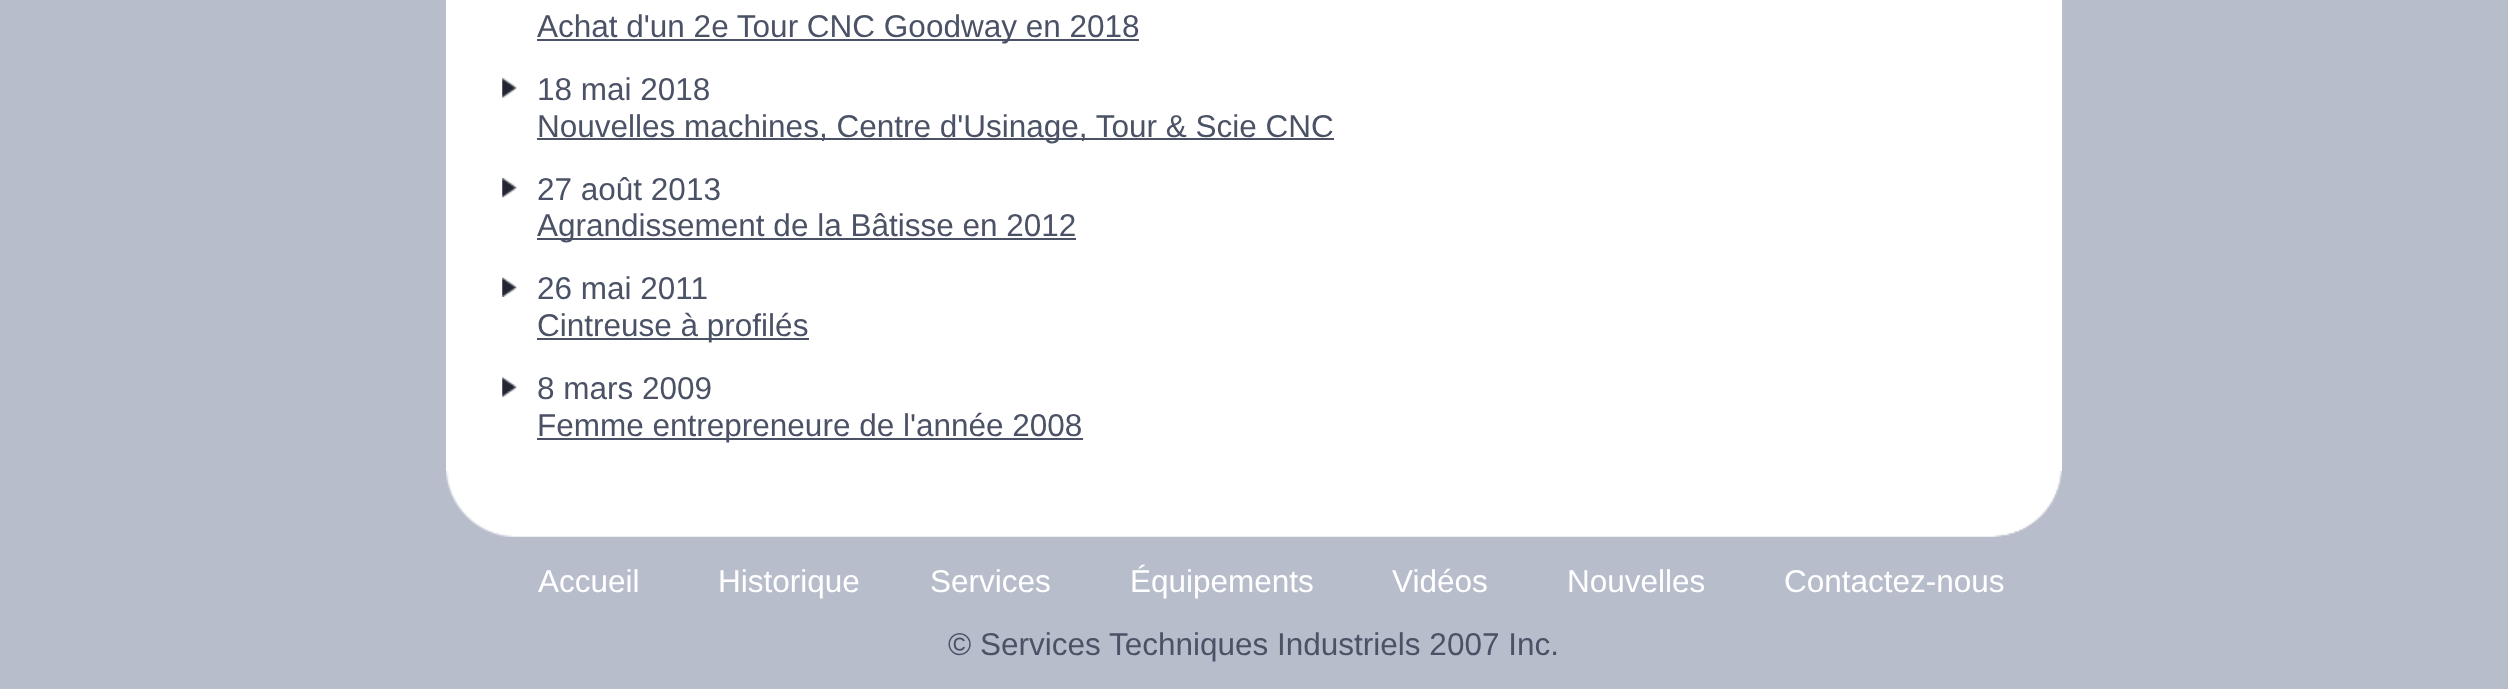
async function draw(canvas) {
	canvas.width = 2508;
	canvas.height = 689;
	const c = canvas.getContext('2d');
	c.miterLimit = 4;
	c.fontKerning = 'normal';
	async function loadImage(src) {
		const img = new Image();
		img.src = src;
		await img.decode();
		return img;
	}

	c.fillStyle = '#b8bdcc';
	c.fillRect(0, 0, 2508, 689);
	c.fillStyle = '#fff';
	c.fillRect(446, 0, 1616, 471);
	c.fillStyle = '#4b5266';
	c.fillRect(537, 39, 602, 2);
	c.font = '31.5px Liberation Sans';
	c.fillText('Achat d\'un 2e Tour CNC Goodway en 2018', 537, 37);
	c.drawImage(await loadImage('img1.png'), 502, 78, 15, 20);
	c.fillText('18 mai 2018', 537, 100);
	c.fillRect(537, 138, 797, 2);
	c.fillText('Nouvelles machines, Centre d\'Usinage, Tour & Scie CNC', 537, 137);
	c.drawImage(await loadImage('img2.png'), 502, 178, 15, 20);
	c.fillText('27 août 2013', 537, 200);
	c.fillRect(537, 238, 539, 2);
	c.fillText('Agrandissement de la Bâtisse en 2012', 537, 236);
	c.drawImage(await loadImage('img3.png'), 502, 277, 15, 20);
	c.fillText('26 mai 2011', 537, 299);
	c.fillRect(537, 338, 272, 2);
	c.fillText('Cintreuse à profilés', 537, 336);
	c.drawImage(await loadImage('img4.png'), 502, 377, 15, 20);
	c.fillText('8 mars 2009', 537, 399);
	c.fillRect(537, 438, 546, 2);
	c.fillText('Femme entrepreneure de l\'année 2008', 537, 436);
	c.drawImage(await loadImage('img5.png'), 446, 471, 1616, 66);
	c.fillStyle = '#fff';
	for (const [text, x, y] of [
		['Accueil', 538, 592],
		['Historique', 718, 592],
		['Services', 930, 592],
		['Équipements', 1130, 592],
		['Vidéos', 1392, 592],
		['Nouvelles', 1567, 592],
		['Contactez-nous', 1784, 592],
	]) {
		c.fillText(text, x, y);
	}
	c.fillStyle = '#4b5266';
	c.fillText('© Services Techniques Industriels 2007 Inc.', 948, 655);
}

draw(document.querySelector('canvas'));
